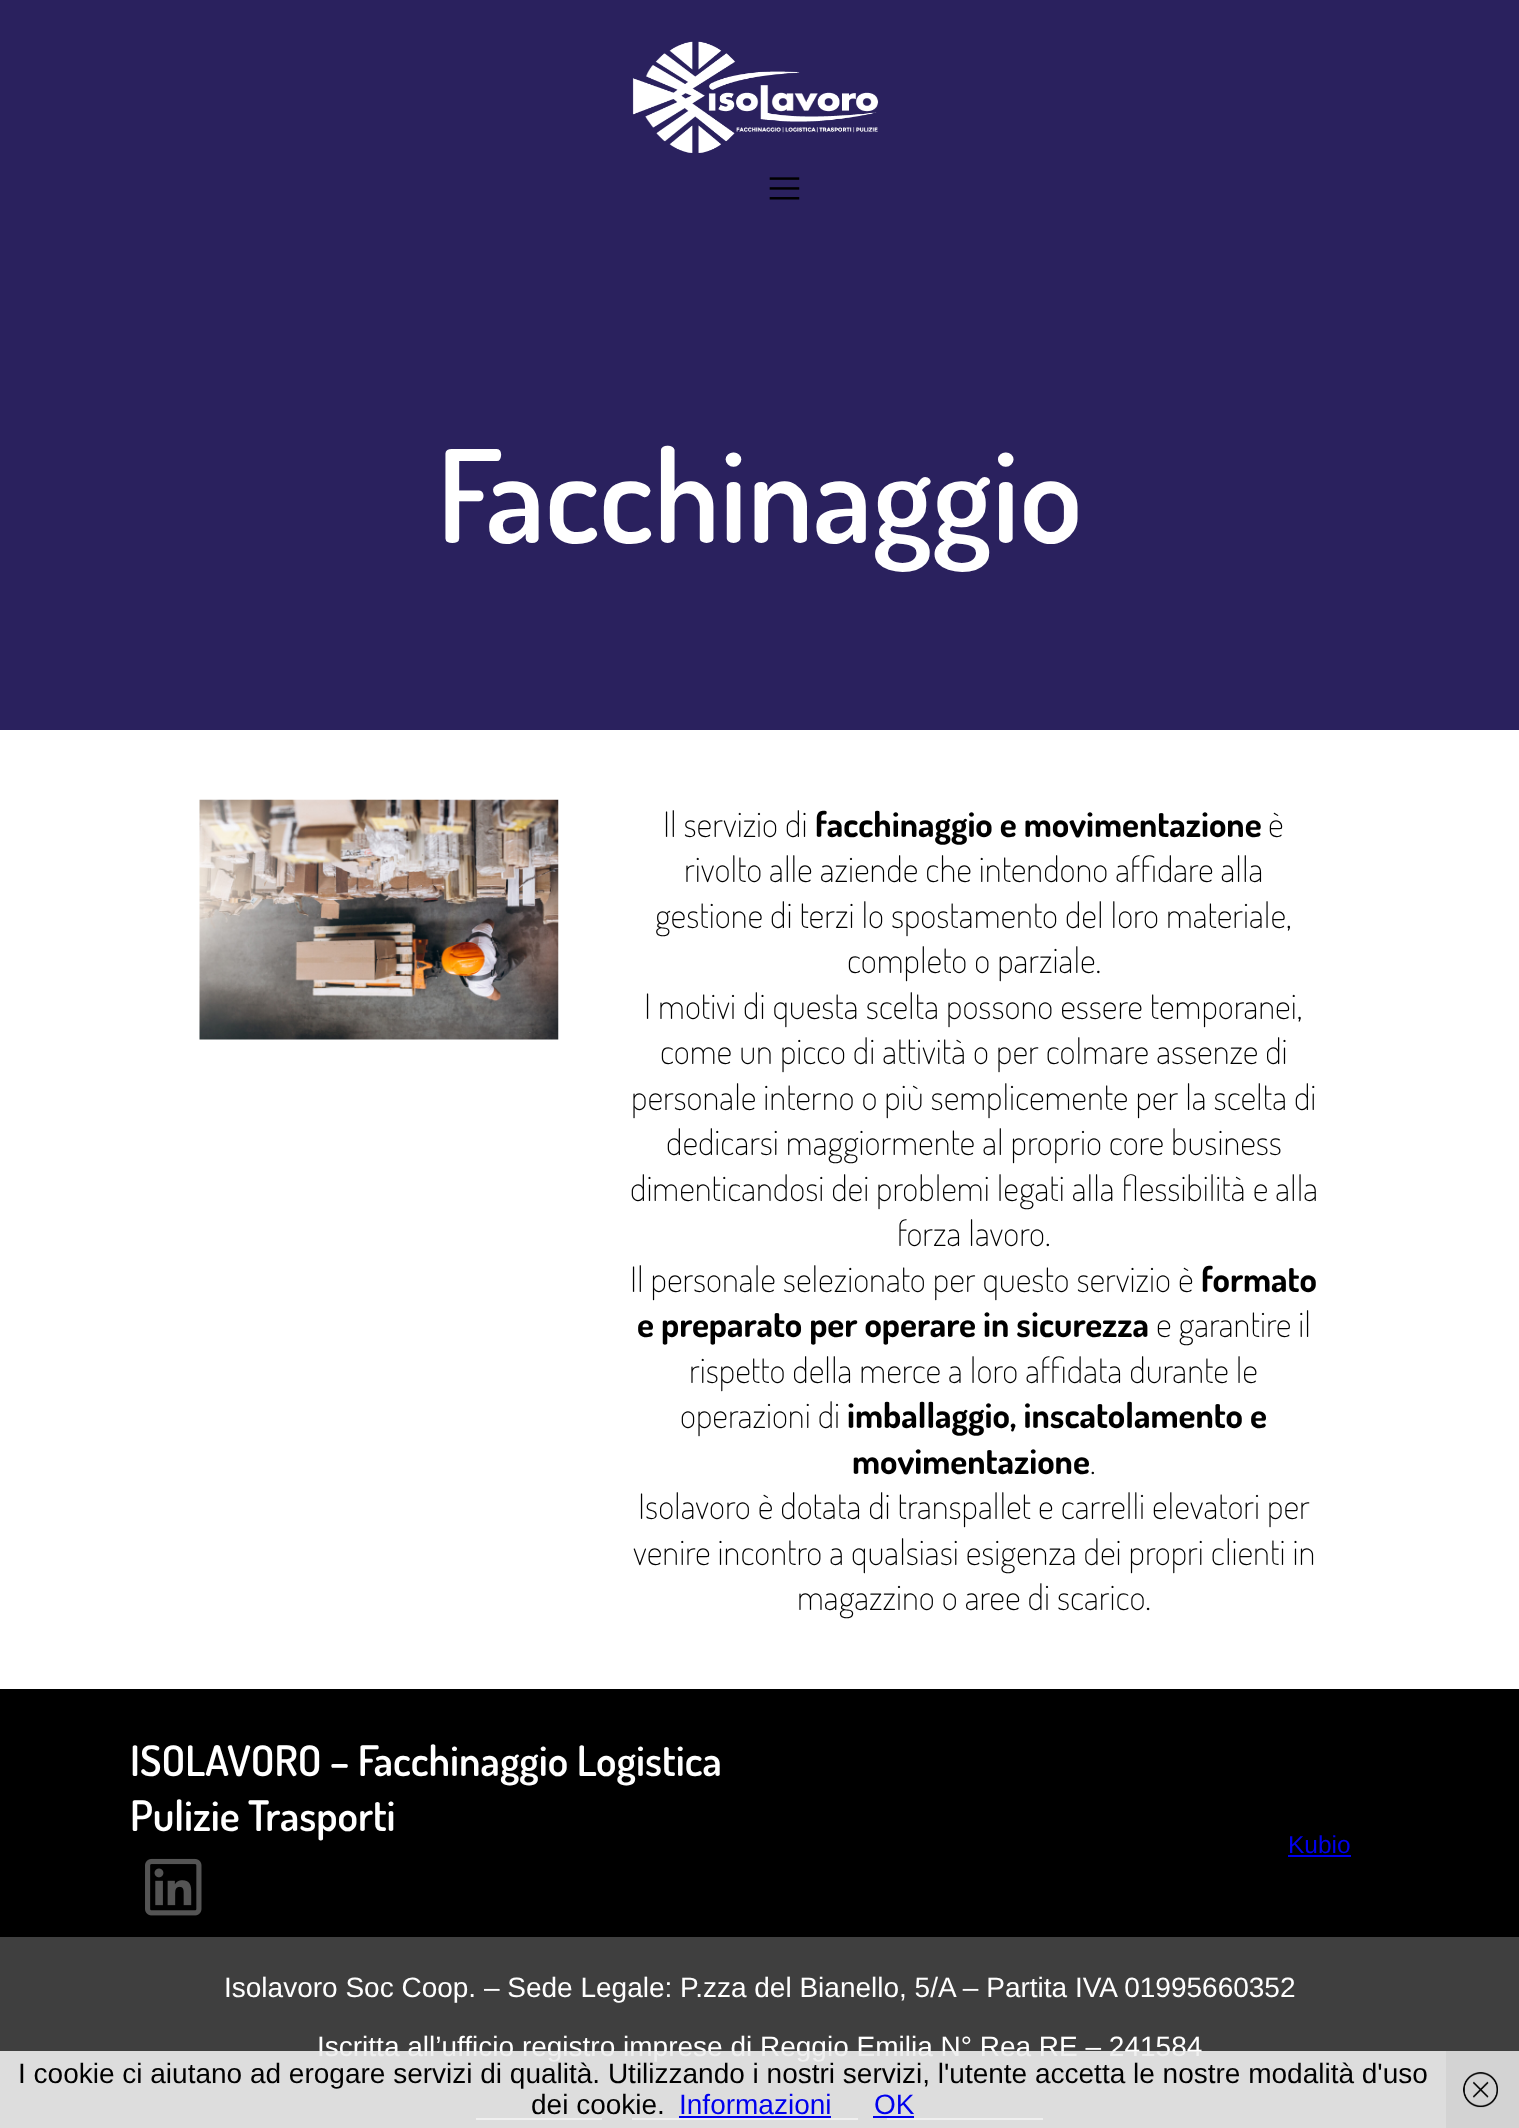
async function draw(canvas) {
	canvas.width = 1519;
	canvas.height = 2128;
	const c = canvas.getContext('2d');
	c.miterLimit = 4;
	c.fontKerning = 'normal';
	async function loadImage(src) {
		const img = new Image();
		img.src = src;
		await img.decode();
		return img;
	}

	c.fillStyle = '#fff';
	c.fillRect(0, 0, 1519, 2128);
	c.fillStyle = '#2a215e';
	c.fillRect(0, 0, 1519, 730);
	c.drawImage(await loadImage('img1.png'), 632, 41, 247, 112);
	c.drawImage(await loadImage('img2.png'), 769, 177, 31, 23);
	c.font = '600 128.75px Dosis';
	c.fillStyle = '#fff';
	c.fillText('Facchinaggio', 437, 543);
	c.drawImage(await loadImage('img3.png'), 199, 799, 360, 241);
	c.font = '200 35px Dosis';
	c.fillStyle = '#000';
	c.fillText('Il servizio di', 663, 837);
	c.font = 'bold 35px Dosis';
	c.fillText('facchinaggio e movimentazione', 815, 837);
	c.font = '200 35px Dosis';
	for (const [text, x, y] of [
		['è', 1268, 837],
		['rivolto alle aziende che intendono affidare alla', 684, 882],
		['gestione di terzi lo spostamento del loro materiale,', 655, 928],
		['completo o parziale.', 847, 973],
		['I motivi di questa scelta possono essere temporanei,', 644, 1019],
		['come un picco di attività o per colmare assenze di', 660, 1064],
		['personale interno o più semplicemente per la scelta di', 631, 1110],
		['dedicarsi maggiormente al proprio core business', 666, 1155],
		['dimenticandosi dei problemi legati alla flessibilità e alla', 630, 1201],
		['forza lavoro.', 897, 1246],
		['Il personale selezionato per questo servizio è', 630, 1292],
	]) {
		c.fillText(text, x, y);
	}
	c.font = 'bold 35px Dosis';
	c.fillText('formato', 1201, 1292);
	c.fillText('e preparato per operare in sicurezza', 637, 1337);
	c.font = '200 35px Dosis';
	for (const [text, x, y] of [
		['e garantire il', 1156, 1337],
		['rispetto della merce a loro affidata durante le', 689, 1383],
		['operazioni di', 680, 1428],
	]) {
		c.fillText(text, x, y);
	}
	c.font = 'bold 35px Dosis';
	c.fillText('imballaggio, inscatolamento e', 847, 1428);
	c.fillText('movimentazione', 852, 1474);
	c.font = '200 35px Dosis';
	for (const [text, x, y] of [
		['.', 1090, 1474],
		['Isolavoro è dotata di transpallet e carrelli elevatori per', 638, 1519],
		['venire incontro a qualsiasi esigenza dei propri clienti in', 633, 1565],
		['magazzino o aree di scarico.', 797, 1610],
	]) {
		c.fillText(text, x, y);
	}
	c.fillRect(0, 1689, 1519, 248);
	c.font = '600 42px Dosis';
	c.fillStyle = '#fff';
	c.fillText('ISOLAVORO – Facchinaggio Logistica', 130, 1776);
	c.fillText('Pulizie Trasporti', 130, 1831);
	c.drawImage(await loadImage('img4.png'), 145, 1858, 57, 58);
	c.font = '24.5px Liberation Sans';
	c.fillStyle = '#00e';
	c.fillText('Kubio', 1288, 1853);
	c.fillRect(1288, 1855, 63, 2);
	c.fillStyle = '#3f3f3f';
	c.fillRect(0, 1937, 1519, 191);
	c.font = '28px Liberation Sans';
	c.fillStyle = '#fff';
	c.fillText('Isolavoro Soc Coop. – Sede Legale: P.zza del Bianello, 5/A – Partita IVA 01995660352', 224, 1997);
	c.fillText('Iscritta all’ufficio registro imprese di Reggio Emilia N° Rea RE – 241584', 317, 2056);
	for (const [x, y, w, h, color] of [
		[476, 2118, 126, 2, '#fff'],
		[632, 2118, 226, 2, '#fff'],
		[887, 2118, 156, 2, '#fff'],
		[0, 2051, 1446, 77, '#eeeeeee6'],
	]) {
		c.fillStyle = color;
		c.fillRect(x, y, w, h);
	}
	c.fillStyle = '#000';
	c.fillText('I cookie ci aiutano ad erogare servizi di qualità. Utilizzando i nostri servizi, l\'utente accetta le nostre modalità d\'uso', 18, 2083);
	c.fillText('dei cookie.', 531, 2114);
	c.fillStyle = '#00e';
	c.fillText('Informazioni', 679, 2114);
	c.fillRect(679, 2116, 152, 2);
	c.fillText('OK', 874, 2114);
	c.fillRect(873, 2116, 41, 2);
	c.fillStyle = '#d3d3d3';
	c.fillRect(1446, 2051, 73, 77);
	c.drawImage(await loadImage('img5.png'), 1463, 2072, 35, 36);
}

draw(document.querySelector('canvas'));
